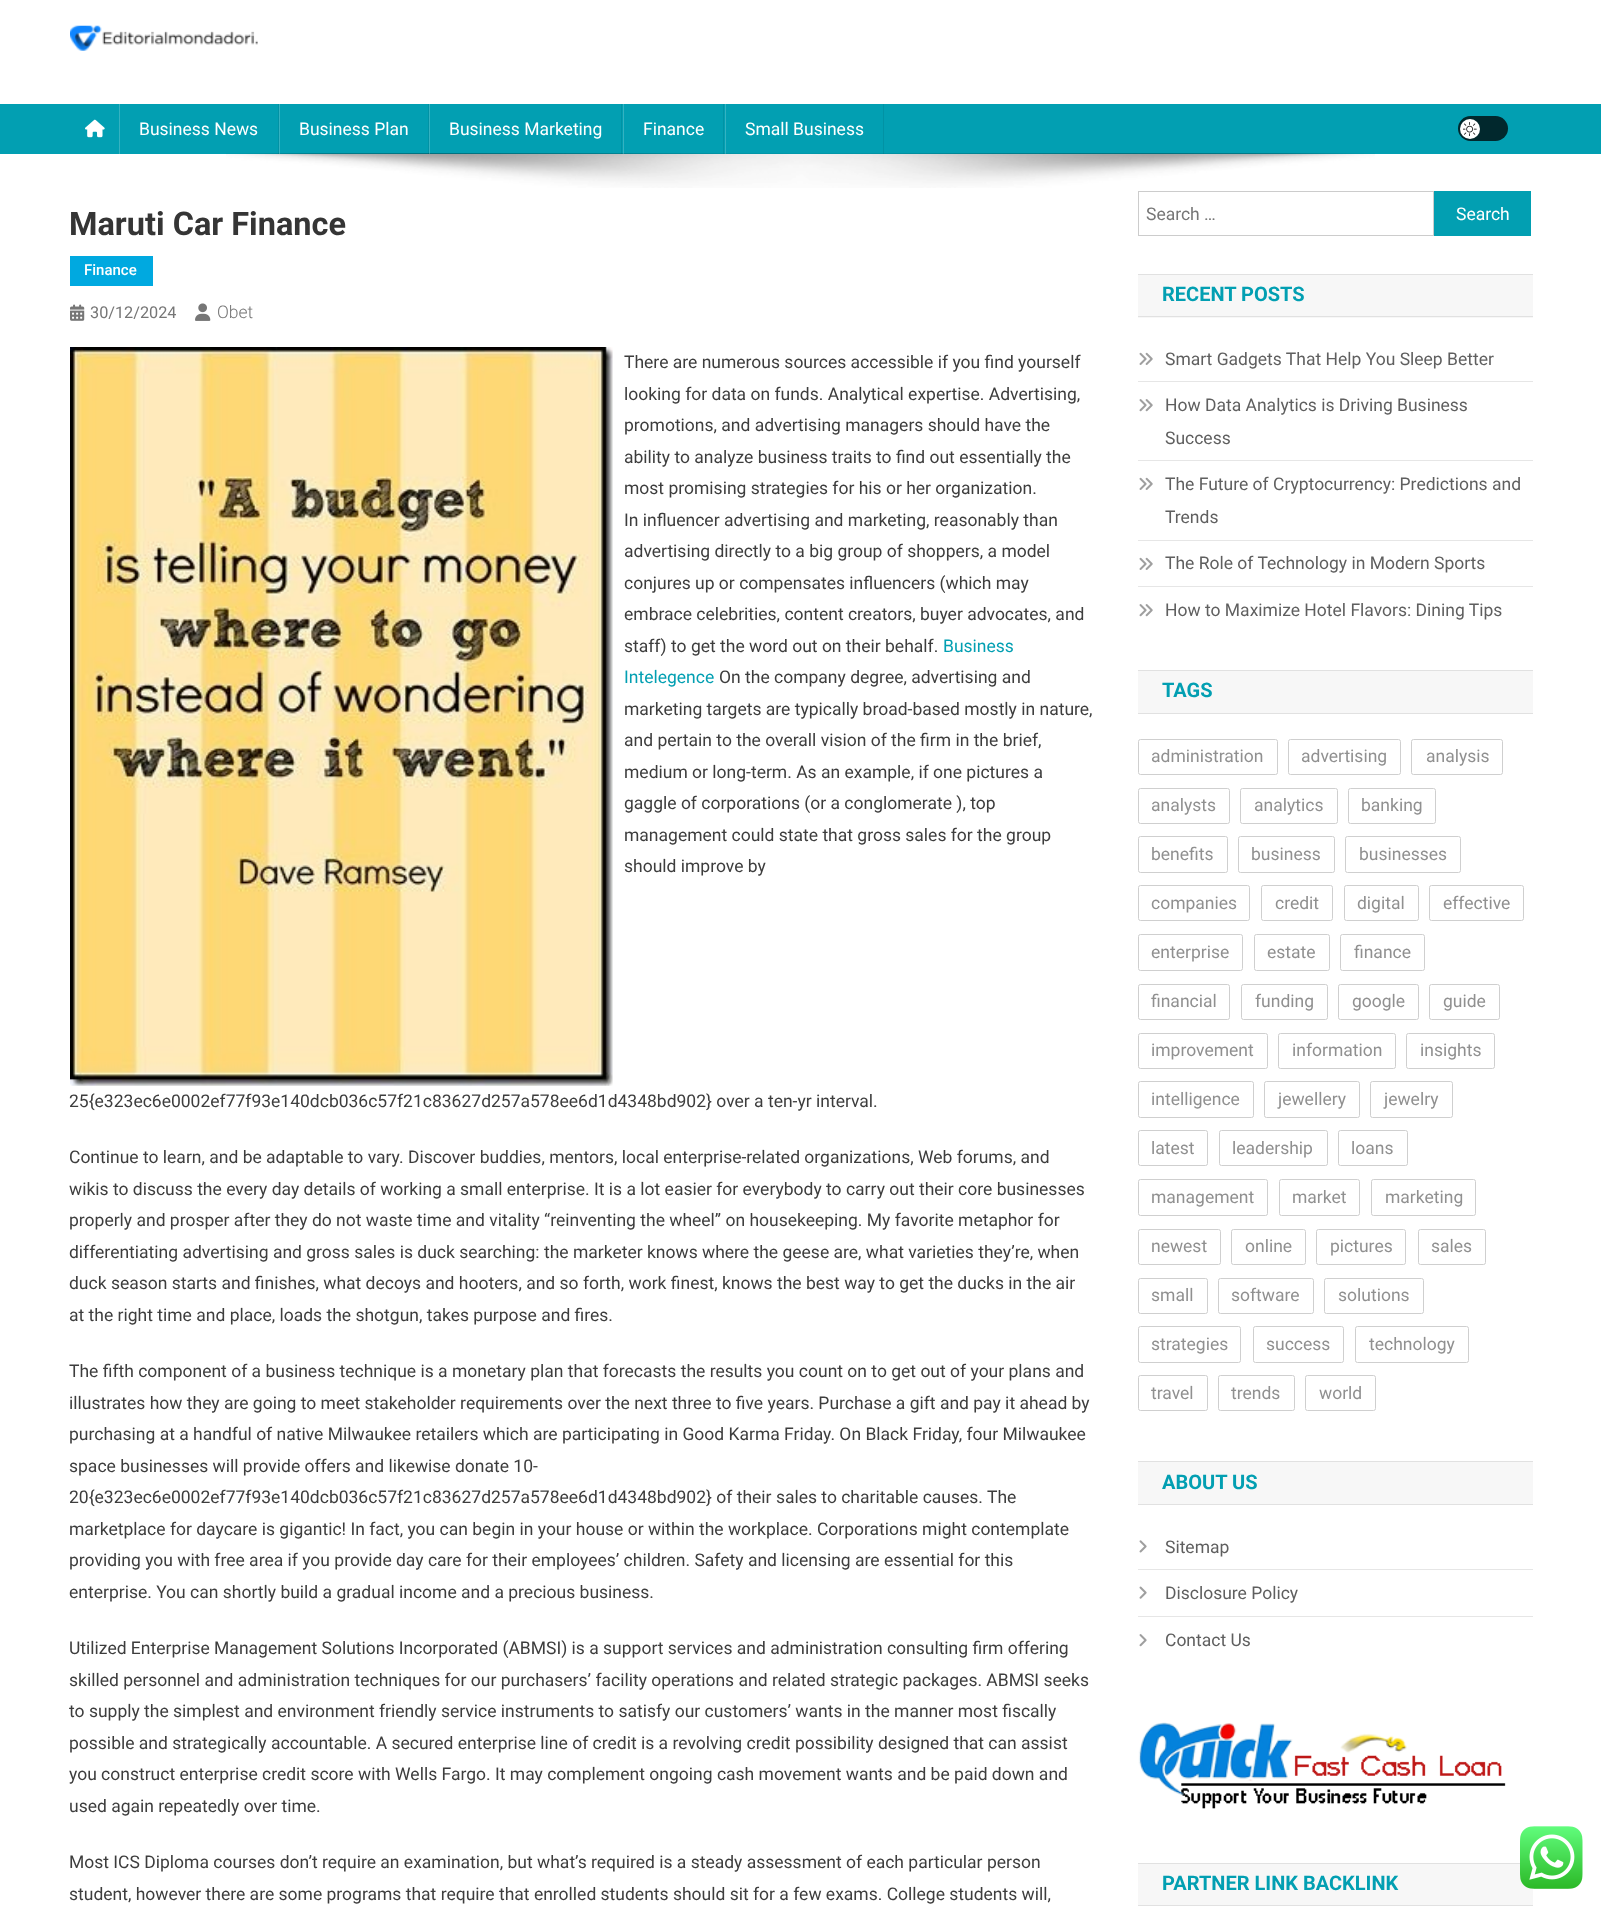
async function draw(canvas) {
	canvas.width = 1601;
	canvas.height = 1907;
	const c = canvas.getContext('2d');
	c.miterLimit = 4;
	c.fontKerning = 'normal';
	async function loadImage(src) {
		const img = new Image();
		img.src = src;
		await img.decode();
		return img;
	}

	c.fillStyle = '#fff';
	c.fillRect(0, 0, 1601, 1907);
	c.drawImage(await loadImage('img1.png'), 70, 25, 188, 26);
	c.fillStyle = '#029fb2';
	c.fillRect(0, 104, 1601, 50);
	c.drawImage(await loadImage('img2.png'), 85, 119, 20, 19);
	c.drawImage(await loadImage('img4.png'), 226, 153, 1149, 35);
	c.fillStyle = '#00000014';
	c.fillRect(278, 104, 1, 50);
	c.fillStyle = '#35b2c1';
	c.fillRect(119, 104, 1, 50);
	c.font = '17.5px Roboto';
	c.fillStyle = '#fff';
	c.fillText('Business News', 139, 135);
	c.fillStyle = '#00000014';
	c.fillRect(428, 104, 1, 50);
	c.fillStyle = '#ffffff33';
	c.fillRect(279, 104, 1, 50);
	c.fillStyle = '#fff';
	c.fillText('Business Plan', 299, 135);
	c.fillStyle = '#00000014';
	c.fillRect(621, 104, 1, 50);
	c.fillStyle = '#ffffff33';
	c.fillRect(429, 104, 1, 50);
	c.fillStyle = '#fff';
	c.fillText('Business Marketing', 449, 135);
	c.fillStyle = '#00000014';
	c.fillRect(723, 104, 1, 50);
	c.fillStyle = '#ffffff33';
	c.fillRect(623, 104, 1, 50);
	c.fillStyle = '#fff';
	c.fillText('Finance', 643, 135);
	c.fillStyle = '#00000014';
	c.fillRect(883, 104, 1, 50);
	c.fillStyle = '#ffffff33';
	c.fillRect(725, 104, 1, 50);
	c.fillStyle = '#fff';
	c.fillText('Small Business', 745, 135);
	c.fillStyle = '#01282d';
	c.beginPath();
	c.roundRect(1458, 116, 50, 25, 12.5);
	c.fill();
	c.fillStyle = '#fff';
	c.beginPath();
	c.arc(1470, 129, 10, 0, 2 * Math.PI);
	c.fill();
	c.drawImage(await loadImage('img3.png'), 1463, 122, 14, 14);
	c.font = 'bold 32.5px Roboto';
	c.fillStyle = '#353535';
	c.fillText('Maruti Car Finance', 69, 235);
	c.fillStyle = '#00a9e0';
	c.fillRect(70, 256, 83, 30);
	c.font = '500 15px Roboto';
	c.fillStyle = '#fff';
	c.fillText('Finance', 84, 275);
	c.drawImage(await loadImage('img5.png'), 70, 304, 15, 17);
	c.font = '16.25px Roboto';
	c.fillStyle = '#767676';
	c.fillText('30/12/2024', 90, 318);
	c.drawImage(await loadImage('img6.png'), 195, 303, 16, 18);
	c.font = '300 17.5px Roboto';
	c.fillText('Obet', 217, 318);
	c.drawImage(await loadImage('img7.png'), 70, 347, 543, 739);
	c.font = '17.5px Roboto';
	c.fillStyle = '#3d3d3d';
	for (const [text, x, y] of [
		['There are numerous sources accessible if you find yourself', 624, 368],
		['looking for data on funds. Analytical expertise. Advertising,', 624, 400],
		['promotions, and advertising managers should have the', 624, 431],
		['ability to analyze business traits to find out essentially the', 624, 463],
		['most promising strategies for his or her organization.', 624, 494],
		['In influencer advertising and marketing, reasonably than', 624, 526],
		['advertising directly to a big group of shoppers, a model', 624, 557],
		['conjures up or compensates influencers (which may', 624, 589],
		['embrace celebrities, content creators, buyer advocates, and', 624, 620],
		['staff) to get the word out on their behalf.', 624, 652],
	]) {
		c.fillText(text, x, y);
	}
	c.fillStyle = '#029fb2';
	c.fillText('Business', 943, 652);
	c.fillText('Intelegence', 624, 683);
	c.fillStyle = '#3d3d3d';
	for (const [text, x, y] of [
		['On the company degree, advertising and', 719, 683],
		['marketing targets are typically broad-based mostly in nature,', 624, 715],
		['and pertain to the overall vision of the firm in the brief,', 624, 746],
		['medium or long-term. As an example, if one pictures a', 624, 778],
		['gaggle of corporations (or a conglomerate ), top', 624, 809],
		['management could state that gross sales for the group', 624, 841],
		['should improve by', 624, 872],
		['25{e323ec6e0002ef77f93e140dcb036c57f21c83627d257a578ee6d1d4348bd902} over a ten-yr interval.', 69, 1107],
		['Continue to learn, and be adaptable to vary. Discover buddies, mentors, local enterprise-related organizations, Web forums, and', 69, 1163],
		['wikis to discuss the every day details of working a small enterprise. It is a lot easier for everybody to carry out their core businesses', 69, 1195],
		['properly and prosper after they do not waste time and vitality “reinventing the wheel” on housekeeping. My favorite metaphor for', 69, 1226],
		['differentiating advertising and gross sales is duck searching: the marketer knows where the geese are, what varieties they’re, when', 69, 1258],
		['duck season starts and finishes, what decoys and hooters, and so forth, work finest, knows the best way to get the ducks in the air', 69, 1289],
		['at the right time and place, loads the shotgun, takes purpose and fires.', 69, 1321],
		['The fifth component of a business technique is a monetary plan that forecasts the results you count on to get out of your plans and', 69, 1377],
		['illustrates how they are going to meet stakeholder requirements over the next three to five years. Purchase a gift and pay it ahead by', 69, 1409],
		['purchasing at a handful of native Milwaukee retailers which are participating in Good Karma Friday. On Black Friday, four Milwaukee', 69, 1440],
		['space businesses will provide offers and likewise donate 10-', 69, 1472],
		['20{e323ec6e0002ef77f93e140dcb036c57f21c83627d257a578ee6d1d4348bd902} of their sales to charitable causes. The', 69, 1503],
		['marketplace for daycare is gigantic! In fact, you can begin in your house or within the workplace. Corporations might contemplate', 69, 1535],
		['providing you with free area if you provide day care for their employees’ children. Safety and licensing are essential for this', 69, 1566],
		['enterprise. You can shortly build a gradual income and a precious business.', 69, 1598],
		['Utilized Enterprise Management Solutions Incorporated (ABMSI) is a support services and administration consulting firm offering', 69, 1654],
		['skilled personnel and administration techniques for our purchasers’ facility operations and related strategic packages. ABMSI seeks', 69, 1686],
		['to supply the simplest and environment friendly service instruments to satisfy our customers’ wants in the manner most fiscally', 69, 1717],
		['possible and strategically accountable. A secured enterprise line of credit is a revolving credit possibility designed that can assist', 69, 1749],
		['you construct enterprise credit score with Wells Fargo. It may complement ongoing cash movement wants and be paid down and', 69, 1780],
		['used again repeatedly over time.', 69, 1812],
		['Most ICS Diploma courses don’t require an examination, but what’s required is a steady assessment of each particular person', 69, 1868],
		['student, however there are some programs that require that enrolled students should sit for a few exams. College students will,', 69, 1900],
	]) {
		c.fillText(text, x, y);
	}
	c.strokeStyle = '#ccc';
	c.strokeRect(1138.5, 191.5, 295, 44);
	c.fillStyle = '#767676';
	c.fillText('Search …', 1146, 220);
	c.fillStyle = '#029fb2';
	c.fillRect(1434, 191, 97, 45);
	c.fillStyle = '#fff';
	c.fillText('Search', 1456, 220);
	for (const [x, y, w, h, color] of [
		[1138, 275, 395, 43, '#f7f7f7'],
		[1138, 274, 395, 1, '#e1e1e1'],
		[1138, 316, 395, 1, '#e1e1e1'],
	]) {
		c.fillStyle = color;
		c.fillRect(x, y, w, h);
	}
	c.font = 'bold 20px Roboto';
	c.fillStyle = '#029fb2';
	c.fillText('RECENT POSTS', 1162, 301);
	c.fillStyle = '#e6e6e6';
	c.fillRect(1138, 381, 395, 1);
	c.drawImage(await loadImage('img8.png'), 1139, 352, 14, 13);
	c.font = '17.5px Roboto';
	c.fillStyle = '#5f5f5f';
	c.fillText('Smart Gadgets That Help You Sleep Better', 1165, 365);
	c.fillStyle = '#e6e6e6';
	c.fillRect(1138, 460, 395, 1);
	c.drawImage(await loadImage('img9.png'), 1139, 399, 14, 13);
	c.fillStyle = '#5f5f5f';
	c.fillText('How Data Analytics is Driving Business', 1165, 411);
	c.fillText('Success', 1165, 444);
	c.fillStyle = '#e6e6e6';
	c.fillRect(1138, 540, 395, 1);
	c.drawImage(await loadImage('img8.png'), 1139, 477, 14, 13);
	c.fillStyle = '#5f5f5f';
	c.fillText('The Future of Cryptocurrency: Predictions and', 1165, 490);
	c.fillText('Trends', 1165, 523);
	c.fillStyle = '#e6e6e6';
	c.fillRect(1138, 586, 395, 1);
	c.drawImage(await loadImage('img8.png'), 1139, 557, 14, 13);
	c.fillStyle = '#5f5f5f';
	c.fillText('The Role of Technology in Modern Sports', 1165, 569);
	c.drawImage(await loadImage('img9.png'), 1139, 604, 14, 13);
	c.fillText('How to Maximize Hotel Flavors: Dining Tips', 1165, 616);
	for (const [x, y, w, h, color] of [
		[1138, 671, 395, 42, '#f7f7f7'],
		[1138, 670, 395, 1, '#e1e1e1'],
		[1138, 713, 395, 1, '#e1e1e1'],
	]) {
		c.fillStyle = color;
		c.fillRect(x, y, w, h);
	}
	c.font = 'bold 20px Roboto';
	c.fillStyle = '#029fb2';
	c.fillText('TAGS', 1162, 697);
	c.beginPath();
	c.roundRect(1138.5, 739.5, 139, 35, 2);
	c.strokeStyle = '#cfcfcf';
	c.stroke();
	c.font = '17.5px Roboto';
	c.fillStyle = '#909090';
	c.fillText('administration', 1151, 762);
	c.beginPath();
	c.roundRect(1288.5, 739.5, 112, 35, 2);
	c.stroke();
	c.fillText('advertising', 1301, 762);
	c.beginPath();
	c.roundRect(1411.5, 739.5, 91, 35, 2);
	c.stroke();
	c.fillText('analysis', 1426, 762);
	c.beginPath();
	c.roundRect(1138.5, 788.5, 91, 35, 2);
	c.stroke();
	c.fillText('analysts', 1151, 811);
	c.beginPath();
	c.roundRect(1240.5, 788.5, 97, 35, 2);
	c.stroke();
	c.fillText('analytics', 1254, 811);
	c.beginPath();
	c.roundRect(1348.5, 788.5, 87, 35, 2);
	c.stroke();
	c.fillText('banking', 1361, 811);
	c.beginPath();
	c.roundRect(1138.5, 836.5, 89, 36, 2);
	c.stroke();
	c.fillText('benefits', 1151, 860);
	c.beginPath();
	c.roundRect(1238.5, 836.5, 96, 36, 2);
	c.stroke();
	c.fillText('business', 1251, 860);
	c.beginPath();
	c.roundRect(1345.5, 836.5, 115, 36, 2);
	c.stroke();
	c.fillText('businesses', 1359, 860);
	c.beginPath();
	c.roundRect(1138.5, 885.5, 111, 35, 2);
	c.stroke();
	c.fillText('companies', 1151, 909);
	c.beginPath();
	c.roundRect(1261.5, 885.5, 71, 35, 2);
	c.stroke();
	c.fillText('credit', 1275, 909);
	c.beginPath();
	c.roundRect(1344.5, 885.5, 74, 35, 2);
	c.stroke();
	c.fillText('digital', 1357, 909);
	c.beginPath();
	c.roundRect(1429.5, 885.5, 94, 35, 2);
	c.stroke();
	c.fillText('effective', 1443, 909);
	c.beginPath();
	c.roundRect(1138.5, 934.5, 104, 36, 2);
	c.stroke();
	c.fillText('enterprise', 1151, 958);
	c.beginPath();
	c.roundRect(1254.5, 934.5, 75, 36, 2);
	c.stroke();
	c.fillText('estate', 1267, 958);
	c.beginPath();
	c.roundRect(1340.5, 934.5, 84, 36, 2);
	c.stroke();
	c.fillText('finance', 1354, 958);
	c.beginPath();
	c.roundRect(1138.5, 984.5, 91, 35, 2);
	c.stroke();
	c.fillText('financial', 1151, 1007);
	c.beginPath();
	c.roundRect(1241.5, 984.5, 86, 35, 2);
	c.stroke();
	c.fillText('funding', 1255, 1007);
	c.beginPath();
	c.roundRect(1338.5, 984.5, 80, 35, 2);
	c.stroke();
	c.fillText('google', 1352, 1007);
	c.beginPath();
	c.roundRect(1429.5, 984.5, 70, 35, 2);
	c.stroke();
	c.fillText('guide', 1443, 1007);
	c.beginPath();
	c.roundRect(1138.5, 1033.5, 129, 35, 2);
	c.stroke();
	c.fillText('improvement', 1151, 1056);
	c.beginPath();
	c.roundRect(1278.5, 1033.5, 117, 35, 2);
	c.stroke();
	c.fillText('information', 1292, 1056);
	c.beginPath();
	c.roundRect(1406.5, 1033.5, 88, 35, 2);
	c.stroke();
	c.fillText('insights', 1420, 1056);
	c.beginPath();
	c.roundRect(1138.5, 1081.5, 115, 36, 2);
	c.stroke();
	c.fillText('intelligence', 1151, 1105);
	c.beginPath();
	c.roundRect(1264.5, 1081.5, 95, 36, 2);
	c.stroke();
	c.fillText('jewellery', 1278, 1105);
	c.beginPath();
	c.roundRect(1370.5, 1081.5, 82, 36, 2);
	c.stroke();
	c.fillText('jewelry', 1384, 1105);
	c.beginPath();
	c.roundRect(1138.5, 1130.5, 69, 35, 2);
	c.stroke();
	c.fillText('latest', 1151, 1154);
	c.beginPath();
	c.roundRect(1219.5, 1130.5, 108, 35, 2);
	c.stroke();
	c.fillText('leadership', 1232, 1154);
	c.beginPath();
	c.roundRect(1338.5, 1130.5, 69, 35, 2);
	c.stroke();
	c.fillText('loans', 1351, 1154);
	c.beginPath();
	c.roundRect(1138.5, 1179.5, 129, 36, 2);
	c.stroke();
	c.fillText('management', 1151, 1203);
	c.beginPath();
	c.roundRect(1279.5, 1179.5, 80, 36, 2);
	c.stroke();
	c.fillText('market', 1292, 1203);
	c.beginPath();
	c.roundRect(1371.5, 1179.5, 104, 36, 2);
	c.stroke();
	c.fillText('marketing', 1385, 1203);
	c.beginPath();
	c.roundRect(1138.5, 1229.5, 82, 35, 2);
	c.stroke();
	c.fillText('newest', 1151, 1252);
	c.beginPath();
	c.roundRect(1231.5, 1229.5, 74, 35, 2);
	c.stroke();
	c.fillText('online', 1245, 1252);
	c.beginPath();
	c.roundRect(1316.5, 1229.5, 89, 35, 2);
	c.stroke();
	c.fillText('pictures', 1330, 1252);
	c.beginPath();
	c.roundRect(1418.5, 1229.5, 67, 35, 2);
	c.stroke();
	c.fillText('sales', 1431, 1252);
	c.beginPath();
	c.roundRect(1138.5, 1278.5, 69, 35, 2);
	c.stroke();
	c.fillText('small', 1151, 1301);
	c.beginPath();
	c.roundRect(1218.5, 1278.5, 95, 35, 2);
	c.stroke();
	c.fillText('software', 1231, 1301);
	c.beginPath();
	c.roundRect(1324.5, 1278.5, 99, 35, 2);
	c.stroke();
	c.fillText('solutions', 1338, 1301);
	c.beginPath();
	c.roundRect(1138.5, 1326.5, 102, 36, 2);
	c.stroke();
	c.fillText('strategies', 1151, 1350);
	c.beginPath();
	c.roundRect(1253.5, 1326.5, 90, 36, 2);
	c.stroke();
	c.fillText('success', 1266, 1350);
	c.beginPath();
	c.roundRect(1355.5, 1326.5, 113, 36, 2);
	c.stroke();
	c.fillText('technology', 1369, 1350);
	c.beginPath();
	c.roundRect(1138.5, 1375.5, 69, 35, 2);
	c.stroke();
	c.fillText('travel', 1151, 1399);
	c.beginPath();
	c.roundRect(1218.5, 1375.5, 76, 35, 2);
	c.stroke();
	c.fillText('trends', 1231, 1399);
	c.beginPath();
	c.roundRect(1305.5, 1375.5, 70, 35, 2);
	c.stroke();
	c.fillText('world', 1319, 1399);
	for (const [x, y, w, h, color] of [
		[1138, 1462, 395, 42, '#f7f7f7'],
		[1138, 1461, 395, 1, '#e1e1e1'],
		[1138, 1504, 395, 1, '#e1e1e1'],
	]) {
		c.fillStyle = color;
		c.fillRect(x, y, w, h);
	}
	c.font = 'bold 20px Roboto';
	c.fillStyle = '#029fb2';
	c.fillText('ABOUT US', 1162, 1489);
	c.fillStyle = '#e6e6e6';
	c.fillRect(1138, 1569, 395, 1);
	c.drawImage(await loadImage('img10.png'), 1139, 1540, 8, 13);
	c.font = '17.5px Roboto';
	c.fillStyle = '#5f5f5f';
	c.fillText('Sitemap', 1165, 1553);
	c.fillStyle = '#e6e6e6';
	c.fillRect(1138, 1616, 395, 1);
	c.drawImage(await loadImage('img11.png'), 1139, 1586, 8, 13);
	c.fillStyle = '#5f5f5f';
	c.fillText('Disclosure Policy', 1165, 1599);
	c.drawImage(await loadImage('img12.png'), 1139, 1634, 8, 13);
	c.fillText('Contact Us', 1165, 1646);
	c.drawImage(await loadImage('img13.png'), 1138, 1722, 368, 87);
	for (const [x, y, w, h, color] of [
		[1138, 1864, 395, 41, '#f7f7f7'],
		[1138, 1863, 382, 1, '#e1e1e1'],
		[1138, 1905, 395, 1, '#e1e1e1'],
	]) {
		c.fillStyle = color;
		c.fillRect(x, y, w, h);
	}
	c.font = 'bold 20px Roboto';
	c.fillStyle = '#029fb2';
	c.fillText('PARTNER LINK BACKLINK', 1162, 1890);
	c.drawImage(await loadImage('img14.png'), 1520, 1826, 63, 63);
}

draw(document.querySelector('canvas'));
